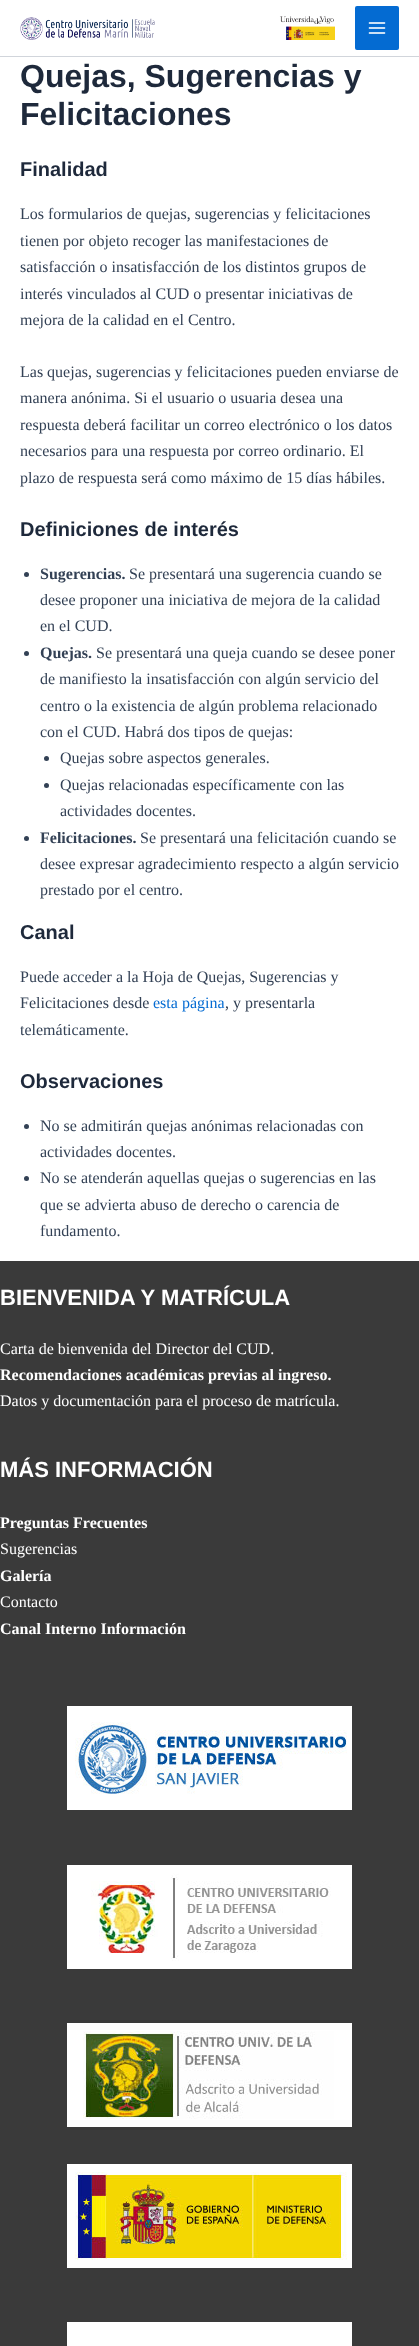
async function draw(canvas) {
	canvas.width = 419;
	canvas.height = 2346;
	const c = canvas.getContext('2d');
	c.miterLimit = 4;
	c.fontKerning = 'normal';
	async function loadImage(src) {
		const img = new Image();
		img.src = src;
		await img.decode();
		return img;
	}

	c.fillStyle = '#fff';
	c.fillRect(0, 0, 419, 2346);
	c.fillStyle = '#d1d5db';
	c.fillRect(0, 56, 419, 1);
	c.drawImage(await loadImage('img1.png'), 20, 16, 315, 24);
	c.fillStyle = '#046bd2';
	c.beginPath();
	c.roundRect(355, 6, 44, 44, 2);
	c.fill();
	c.drawImage(await loadImage('img2.png'), 368, 22, 18, 12);
	c.font = 'bold 32px Liberation Sans';
	c.fillStyle = '#1e293b';
	c.fillText('Quejas, Sugerencias y', 20, 87);
	c.fillText('Felicitaciones', 20, 125);
	c.font = 'bold 20px Liberation Sans';
	c.fillText('Finalidad', 20, 176);
	c.font = '16px Liberation Serif';
	c.fillStyle = '#334155';
	for (const [text, x, y] of [
		['Los formularios de quejas, sugerencias y felicitaciones', 20, 219],
		['tienen por objeto recoger las manifestaciones de', 20, 246],
		['satisfacción o insatisfacción de los distintos grupos de', 20, 272],
		['interés vinculados al CUD o presentar iniciativas de', 20, 299],
		['mejora de la calidad en el Centro.', 20, 325],
		['Las quejas, sugerencias y felicitaciones pueden enviarse de', 20, 377],
		['manera anónima. Si el usuario o usuaria desea una', 20, 403],
		['respuesta deberá facilitar un correo electrónico o los datos', 20, 430],
		['necesarios para una respuesta por correo ordinario. El', 20, 456],
		['plazo de respuesta será como máximo de 15 días hábiles.', 20, 483],
	]) {
		c.fillText(text, x, y);
	}
	c.font = 'bold 20px Liberation Sans';
	c.fillStyle = '#1e293b';
	c.fillText('Definiciones de interés', 20, 536);
	c.fillStyle = '#334155';
	c.beginPath();
	c.arc(26.5, 574.5, 2.5, 0, 2 * Math.PI);
	c.fill();
	c.font = 'bold 16px Liberation Serif';
	c.fillText('Sugerencias.', 40, 579);
	c.font = '16px Liberation Serif';
	for (const [text, x, y] of [
		['Se presentará una sugerencia cuando se', 129, 579],
		['desee proponer una iniciativa de mejora de la calidad', 40, 605],
		['en el CUD.', 40, 631],
	]) {
		c.fillText(text, x, y);
	}
	c.beginPath();
	c.arc(26.5, 653.5, 2.5, 0, 2 * Math.PI);
	c.fill();
	c.font = 'bold 16px Liberation Serif';
	c.fillText('Quejas.', 40, 658);
	c.font = '16px Liberation Serif';
	for (const [text, x, y] of [
		['Se presentará una queja cuando se desee poner', 96, 658],
		['de manifiesto la insatisfacción con algún servicio del', 40, 684],
		['centro o la existencia de algún problema relacionado', 40, 711],
		['con el CUD. Habrá dos tipos de quejas:', 40, 737],
	]) {
		c.fillText(text, x, y);
	}
	c.beginPath();
	c.arc(46.5, 758.5, 2.5, 0, 2 * Math.PI);
	c.fill();
	c.fillText('Quejas sobre aspectos generales.', 60, 763);
	c.beginPath();
	c.arc(46.5, 785.5, 2.5, 0, 2 * Math.PI);
	c.fill();
	c.fillText('Quejas relacionadas específicamente con las', 60, 790);
	c.fillText('actividades docentes.', 60, 816);
	c.beginPath();
	c.arc(26.5, 838.5, 2.5, 0, 2 * Math.PI);
	c.fill();
	c.font = 'bold 16px Liberation Serif';
	c.fillText('Felicitaciones.', 40, 843);
	c.font = '16px Liberation Serif';
	for (const [text, x, y] of [
		['Se presentará una felicitación cuando se', 140, 843],
		['desee expresar agradecimiento respecto a algún servicio', 40, 869],
		['prestado por el centro.', 40, 895],
	]) {
		c.fillText(text, x, y);
	}
	c.font = 'bold 20px Liberation Sans';
	c.fillStyle = '#1e293b';
	c.fillText('Canal', 20, 939);
	c.font = '16px Liberation Serif';
	c.fillStyle = '#334155';
	c.fillText('Puede acceder a la Hoja de Quejas, Sugerencias y', 20, 982);
	c.fillText('Felicitaciones desde', 20, 1008);
	c.fillStyle = '#046bd2';
	c.fillText('esta página', 153, 1008);
	c.fillStyle = '#334155';
	c.fillText(', y presentarla', 225, 1008);
	c.fillText('telemáticamente.', 20, 1035);
	c.font = 'bold 20px Liberation Sans';
	c.fillStyle = '#1e293b';
	c.fillText('Observaciones', 20, 1088);
	c.fillStyle = '#334155';
	c.beginPath();
	c.arc(26.5, 1126.5, 2.5, 0, 2 * Math.PI);
	c.fill();
	c.font = '16px Liberation Serif';
	c.fillText('No se admitirán quejas anónimas relacionadas con', 40, 1131);
	c.fillText('actividades docentes.', 40, 1157);
	c.beginPath();
	c.arc(26.5, 1178.5, 2.5, 0, 2 * Math.PI);
	c.fill();
	for (const [text, x, y] of [
		['No se atenderán aquellas quejas o sugerencias en las', 40, 1183],
		['que se advierta abuso de derecho o carencia de', 40, 1210],
		['fundamento.', 40, 1236],
	]) {
		c.fillText(text, x, y);
	}
	c.fillStyle = '#3a3a3a';
	c.fillRect(0, 1261, 419, 1085);
	c.font = 'bold 22px Liberation Sans';
	c.fillStyle = '#fff';
	c.fillText('BIENVENIDA Y MATRÍCULA', 0, 1305);
	c.font = '16px Liberation Serif';
	c.fillText('Carta de bienvenida del Director del CUD.', 0, 1354);
	c.font = 'bold 16px Liberation Serif';
	c.fillText('Recomendaciones académicas previas al ingreso.', 0, 1380);
	c.font = '16px Liberation Serif';
	c.fillText('Datos y documentación para el proceso de matrícula.', 0, 1406);
	c.font = 'bold 22px Liberation Sans';
	c.fillText('MÁS INFORMACIÓN', 0, 1477);
	c.font = 'bold 16px Liberation Serif';
	c.fillText('Preguntas Frecuentes', 0, 1528);
	c.font = '16px Liberation Serif';
	c.fillText('Sugerencias', 0, 1554);
	c.font = 'bold 16px Liberation Serif';
	c.fillText('Galería', 0, 1581);
	c.font = '16px Liberation Serif';
	c.fillText('Contacto', 0, 1607);
	c.font = 'bold 16px Liberation Serif';
	c.fillText('Canal Interno Información', 0, 1634);
	c.drawImage(await loadImage('img3.png'), 67, 1706, 285, 104);
	c.drawImage(await loadImage('img4.png'), 67, 1865, 285, 104);
	c.drawImage(await loadImage('img5.png'), 67, 2023, 285, 104);
	c.drawImage(await loadImage('img6.png'), 67, 2164, 285, 104);
	c.fillRect(67, 2322, 285, 24);
}

draw(document.querySelector('canvas'));
